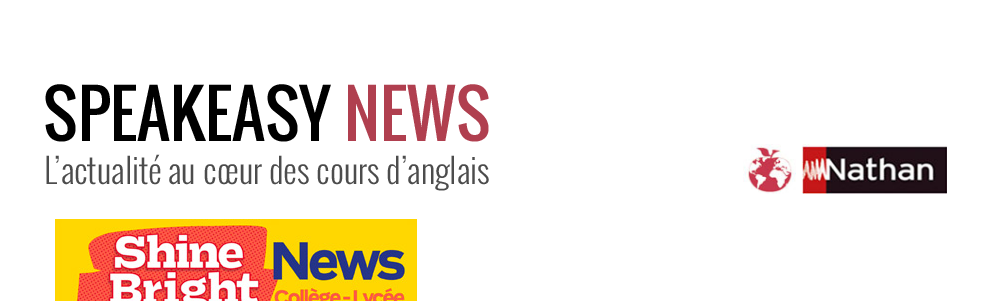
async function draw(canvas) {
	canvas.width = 992;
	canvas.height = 301;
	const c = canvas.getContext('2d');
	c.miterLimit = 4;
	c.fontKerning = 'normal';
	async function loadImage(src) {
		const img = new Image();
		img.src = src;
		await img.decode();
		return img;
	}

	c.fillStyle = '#fff';
	c.fillRect(0, 0, 992, 301);
	c.drawImage(await loadImage('img1.png'), 45, 84, 444, 107);
	c.drawImage(await loadImage('img2.png'), 743, 144, 53, 50);
	c.drawImage(await loadImage('img3.png'), 802, 144, 145, 50);
	c.drawImage(await loadImage('img4.png'), 55, 219, 362, 82);
}

draw(document.querySelector('canvas'));
